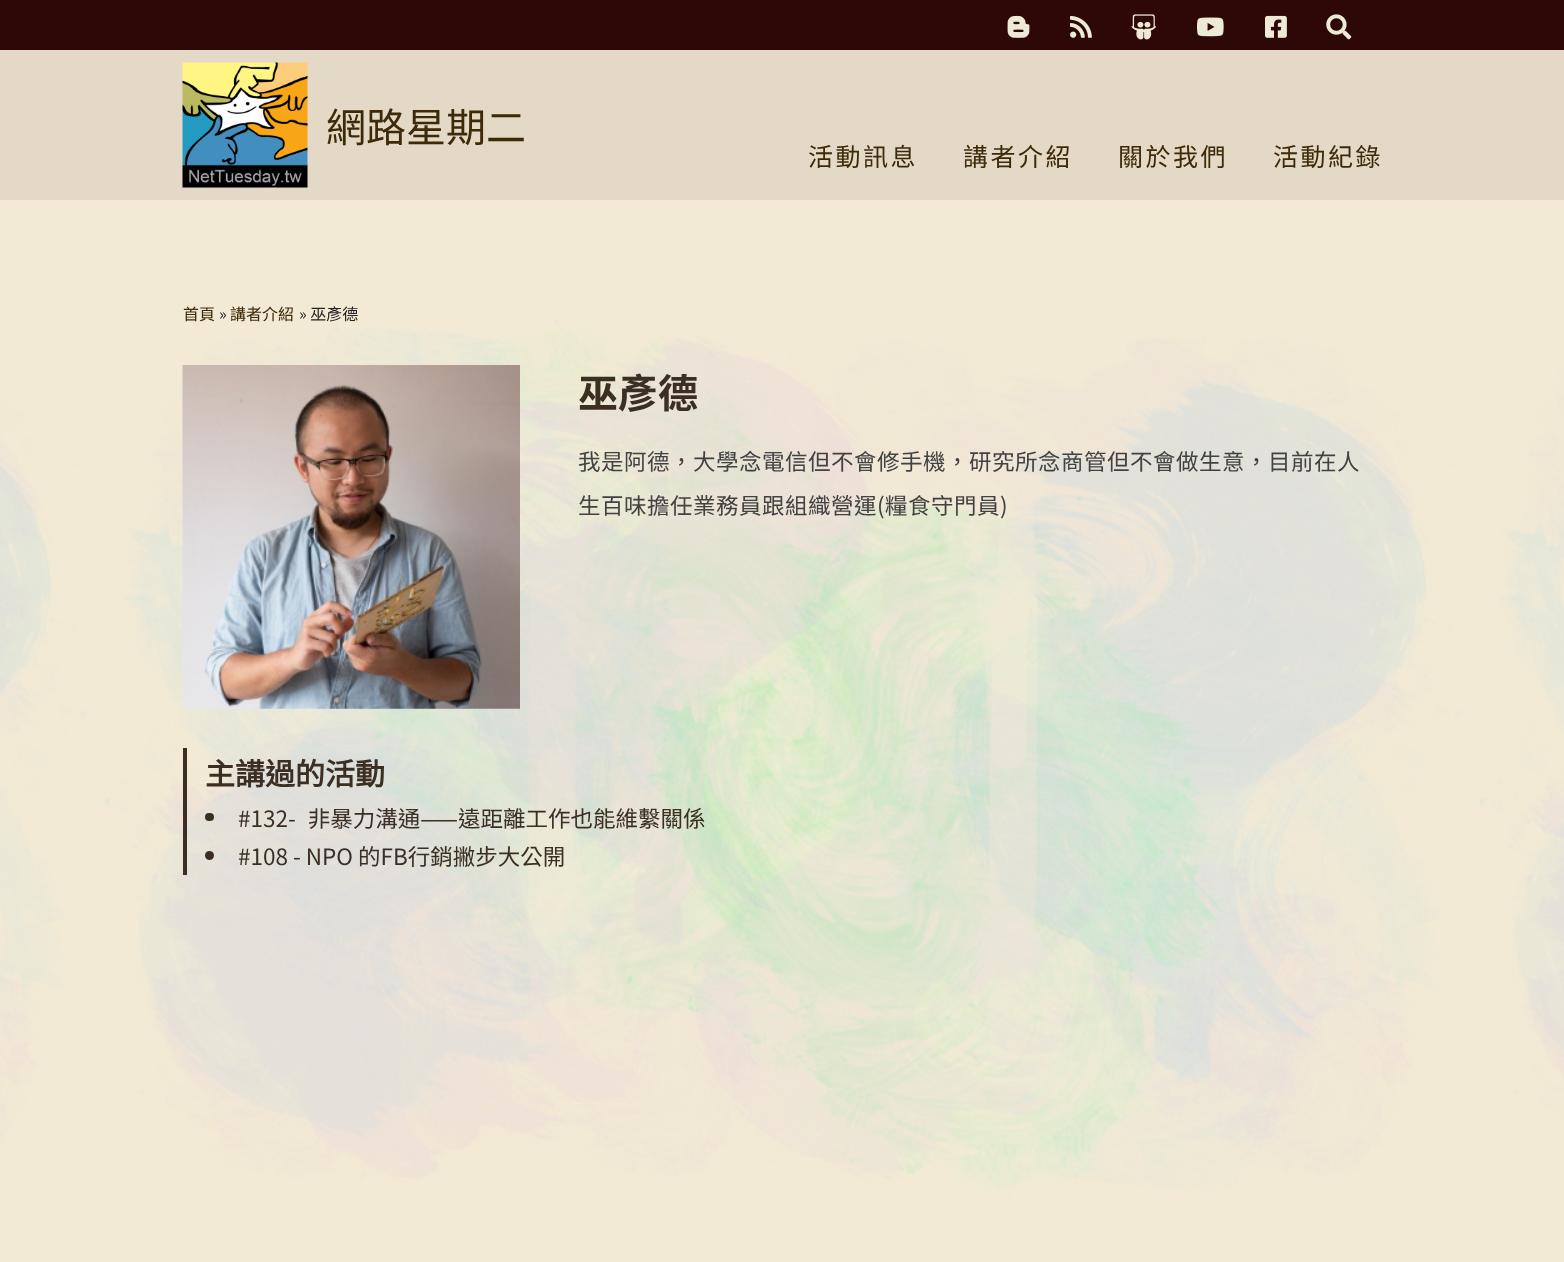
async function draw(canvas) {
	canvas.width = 1564;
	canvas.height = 1262;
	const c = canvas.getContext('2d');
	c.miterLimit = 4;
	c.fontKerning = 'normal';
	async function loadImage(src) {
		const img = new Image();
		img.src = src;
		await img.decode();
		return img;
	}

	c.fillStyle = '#2e0707';
	c.fillRect(0, 0, 1564, 1262);
	c.drawImage(await loadImage('img1.png'), 1007, 15, 23, 23);
	c.drawImage(await loadImage('img2.png'), 1070, 16, 22, 22);
	c.drawImage(await loadImage('img3.png'), 1131, 14, 25, 26);
	c.drawImage(await loadImage('img4.png'), 1197, 17, 27, 20);
	c.drawImage(await loadImage('img5.png'), 1265, 15, 22, 23);
	c.drawImage(await loadImage('img6.png'), 1326, 14, 26, 26);
	c.fillStyle = '#e3d9c6';
	c.fillRect(0, 50, 1564, 150);
	c.drawImage(await loadImage('img7.png'), 182, 62, 126, 126);
	c.font = '100 40px Noto Sans TC';
	c.fillStyle = '#3e2908';
	c.fillText('網路星期二', 326, 142);
	c.letterSpacing = '2.5px';
	c.font = '100 25px Noto Sans TC';
	for (const [text, x, y] of [
		['活動訊息', 808, 166],
		['講者介紹', 963, 166],
		['關於我們', 1118, 166],
		['活動紀錄', 1273, 166],
	]) {
		c.fillText(text, x, y);
	}
	c.fillStyle = '#f2ead4';
	c.fillRect(0, 200, 1564, 1062);
	c.drawImage(await loadImage('img8.png'), 0, 320, 1564, 876);
	c.letterSpacing = '0px';
	c.font = '100 16px Noto Sans TC';
	c.fillStyle = '#3e2908';
	c.fillText('首頁', 183, 320);
	c.fillStyle = '#212121';
	c.fillText('»', 219, 320);
	c.fillStyle = '#3e2908';
	c.fillText('講者介紹', 230, 320);
	c.fillStyle = '#212121';
	c.fillText('» 巫彥德', 299, 320);
	c.drawImage(await loadImage('img9.png'), 182, 365, 338, 344);
	c.font = 'bold 40px Noto Sans CJK TC';
	c.fillStyle = '#3b2f24';
	c.fillText('巫彥德', 578, 408);
	c.letterSpacing = '0.5px';
	c.font = '22.5px Noto Sans CJK TC';
	c.fillStyle = '#424242';
	c.fillText('我是阿德，大學念電信但不會修手機，研究所念商管但不會做生意，目前在人', 578, 470);
	c.fillText('生百味擔任業務員跟組織營運(糧食守門員)', 578, 514);
	c.fillStyle = '#3b2f24';
	c.fillRect(183, 748, 4, 127);
	c.letterSpacing = '0px';
	c.font = 'bold 30px Noto Sans TC';
	c.fillText('主講過的活動', 205, 785);
	c.beginPath();
	c.roundRect(205, 813, 9, 8, 4);
	c.fill();
	c.wordSpacing = '7px';
	c.font = '100 22.5px Noto Sans TC';
	c.fillText('#132- 非暴力溝通——遠距離工作也能維繫關係', 238, 827);
	c.beginPath();
	c.arc(209.5, 855.5, 4.5, 0, 2 * Math.PI);
	c.fill();
	c.wordSpacing = '0px';
	c.fillText('#108 - NPO 的FB行銷撇步大公開', 238, 865);
}

draw(document.querySelector('canvas'));
